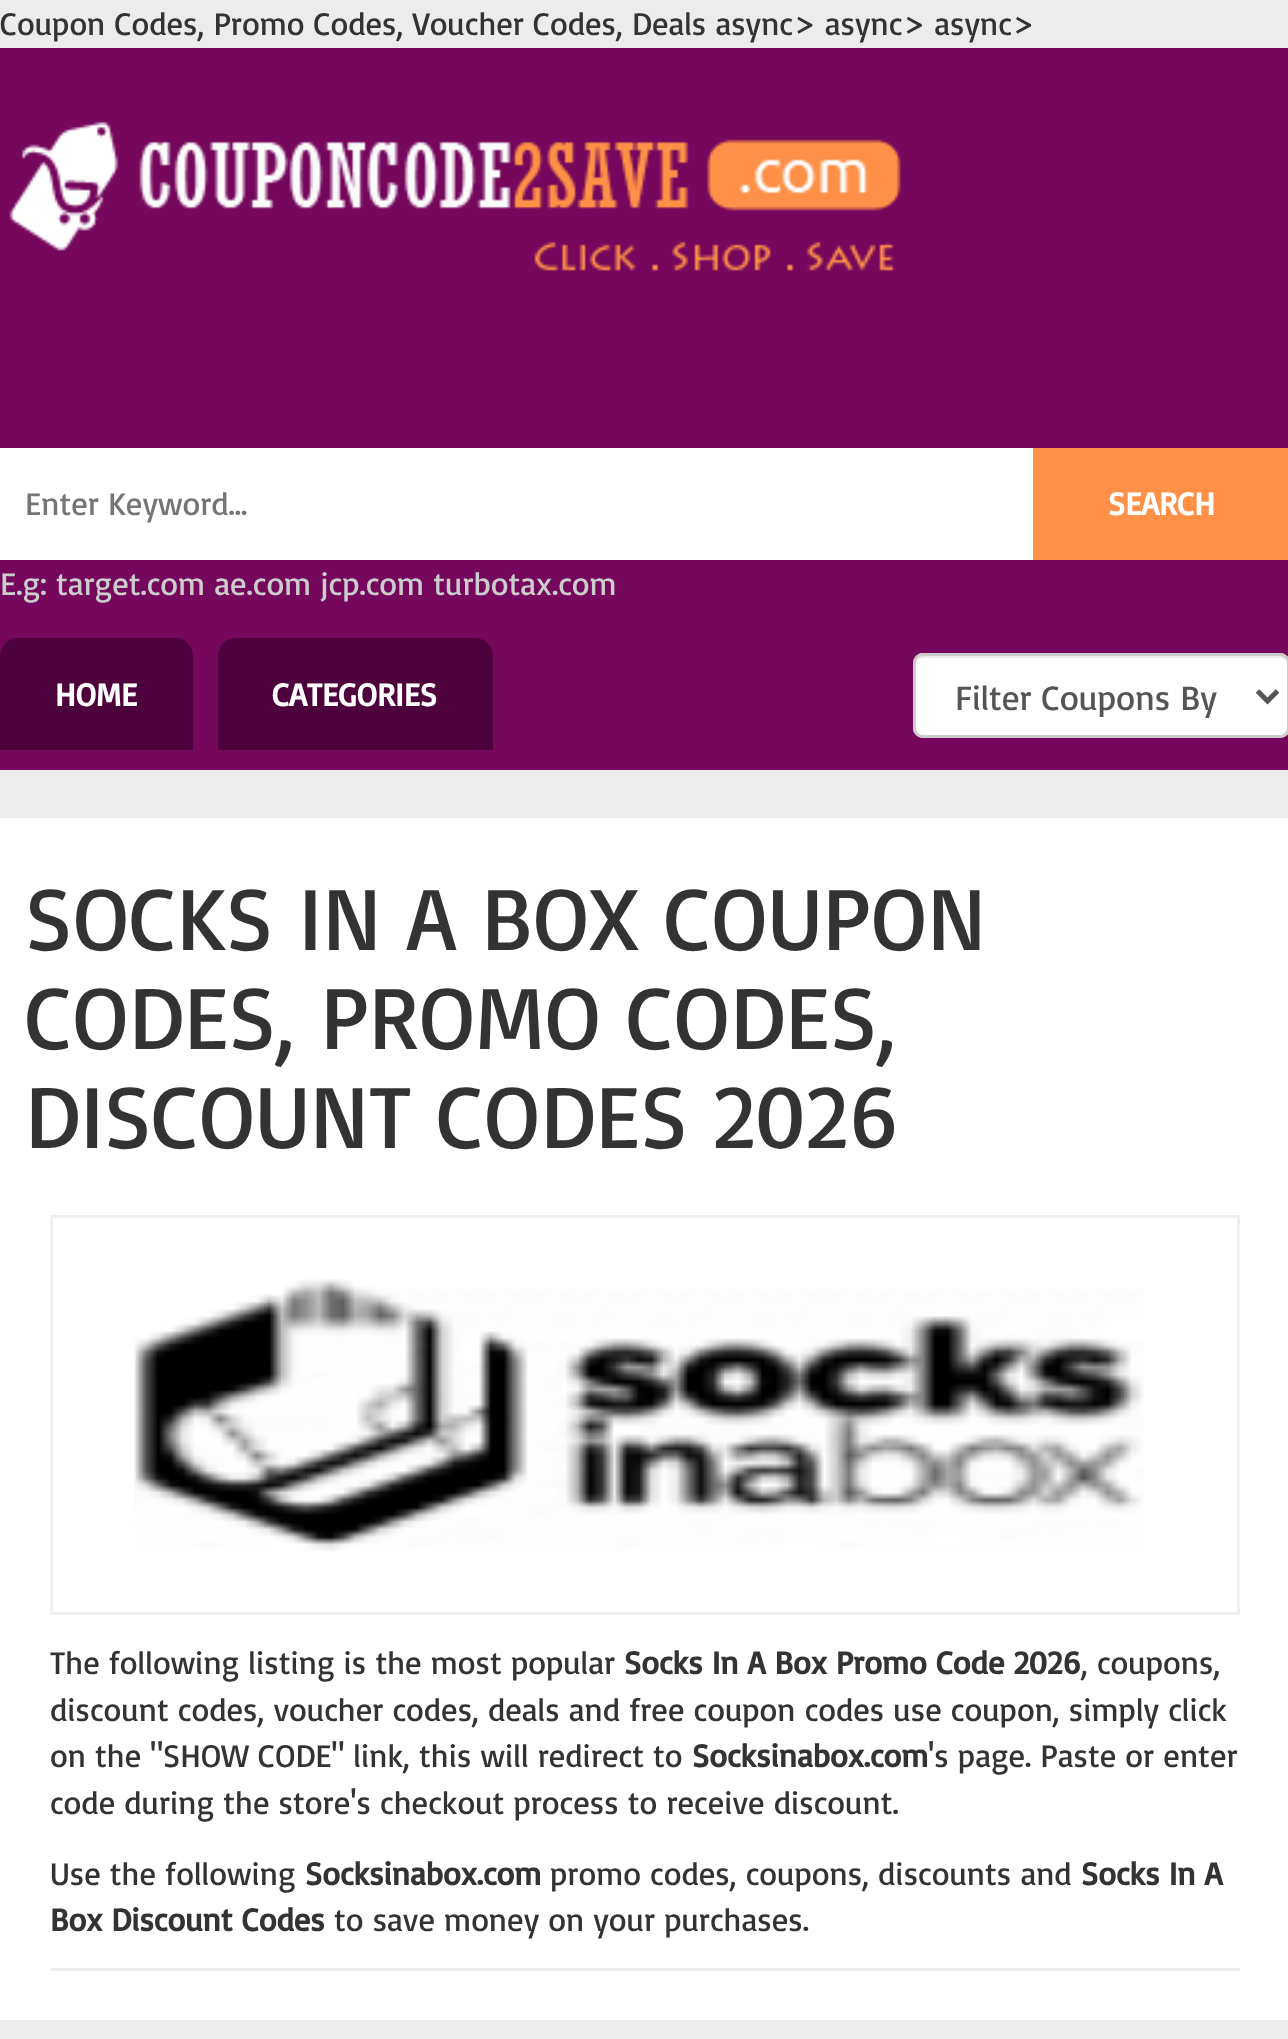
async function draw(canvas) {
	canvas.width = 1288;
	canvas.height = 2039;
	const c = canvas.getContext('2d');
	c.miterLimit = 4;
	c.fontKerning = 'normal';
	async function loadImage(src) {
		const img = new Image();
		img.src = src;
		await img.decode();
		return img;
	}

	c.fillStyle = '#ececec';
	c.fillRect(0, 0, 1288, 2039);
	c.font = '32.5px Basic';
	c.fillStyle = '#333';
	c.fillText('Coupon Codes, Promo Codes, Voucher Codes, Deals async> async> async>', 0, 35);
	c.fillStyle = '#75085d';
	c.fillRect(0, 48, 1288, 722);
	c.drawImage(await loadImage('img1.png'), 9, 121, 892, 150);
	c.fillStyle = '#fff';
	c.fillRect(0, 448, 1033, 112);
	c.fillStyle = '#757575';
	c.fillText('Enter Keyword...', 25, 515);
	c.fillStyle = '#fe9047';
	c.fillRect(1033, 448, 255, 112);
	c.font = 'bold 32.5px Basic';
	c.fillStyle = '#fff';
	c.fillText('SEARCH', 1108, 515);
	c.font = '32.5px Basic';
	c.fillStyle = '#ccc';
	c.fillText('E.g: target.com ae.com jcp.com turbotax.com', 0, 595);
	c.fillStyle = '#4e023d';
	c.beginPath();
	c.roundRect(0, 638, 193, 112, [18, 18, 0, 0]);
	c.fill();
	c.font = 'bold 32.5px Basic';
	c.fillStyle = '#fff';
	c.fillText('HOME', 55, 706);
	c.fillStyle = '#4e023d';
	c.beginPath();
	c.roundRect(218, 638, 275, 112, [18, 18, 0, 0]);
	c.fill();
	c.fillStyle = '#fff';
	c.fillText('CATEGORIES', 272, 706);
	c.beginPath();
	c.roundRect(913, 653, 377, 85, 10);
	c.fill();
	c.fillStyle = '#ececec';
	c.beginPath();
	c.moveTo(922, 658);
	c.lineTo(1280, 658);
	c.bezierCurveTo(1284, 658, 1288, 661, 1288, 665);
	c.bezierCurveTo(1288, 660, 1286, 655, 1280, 655);
	c.lineTo(921, 655);
	c.bezierCurveTo(916, 656, 915, 661, 915, 665);
	c.bezierCurveTo(915, 661, 918, 658, 922, 658);
	c.closePath();
	c.fill();
	c.beginPath();
	c.roundRect(914.5, 654.5, 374, 82, 8.5);
	c.strokeStyle = '#ccc';
	c.lineWidth = 3;
	c.stroke();
	c.beginPath();
	c.moveTo(1257.5, 691);
	c.lineTo(1267.5, 701);
	c.lineTo(1277.5, 691);
	c.strokeStyle = '#555';
	c.lineWidth = 5;
	c.stroke();
	c.font = '35px Basic';
	c.fillStyle = '#555';
	c.fillText('Filter Coupons By', 955, 710);
	c.fillStyle = '#fff';
	c.fillRect(0, 818, 1288, 1202);
	c.font = '90px Basic';
	c.fillStyle = '#333';
	for (const [text, x, y] of [
		['SOCKS IN A BOX COUPON', 25, 950],
		['CODES, PROMO CODES,', 25, 1049],
		['DISCOUNT CODES 2026', 25, 1148],
	]) {
		c.fillText(text, x, y);
	}
	c.strokeStyle = '#efefef';
	c.lineWidth = 3;
	c.strokeRect(51.5, 1216.5, 1187, 397);
	c.drawImage(await loadImage('img2.png'), 134, 1279, 1010, 272);
	c.font = '32.5px Basic';
	c.fillText('The following listing is the most popular', 50, 1674);
	c.font = 'bold 32.5px Basic';
	c.fillText('Socks In A Box Promo Code 2026', 624, 1674);
	c.font = '32.5px Basic';
	for (const [text, x, y] of [
		[', coupons,', 1081, 1674],
		['discount codes, voucher codes, deals and free coupon codes use coupon, simply click', 50, 1721],
		['on the "SHOW CODE" link, this will redirect to', 50, 1767],
	]) {
		c.fillText(text, x, y);
	}
	c.font = 'bold 32.5px Basic';
	c.fillText('Socksinabox.com', 692, 1767);
	c.font = '32.5px Basic';
	for (const [text, x, y] of [
		['\'s page. Paste or enter', 928, 1767],
		['code during the store\'s checkout process to receive discount.', 50, 1814],
		['Use the following', 50, 1885],
	]) {
		c.fillText(text, x, y);
	}
	c.font = 'bold 32.5px Basic';
	c.fillText('Socksinabox.com', 305, 1885);
	c.font = '32.5px Basic';
	c.fillText('promo codes, coupons, discounts and', 550, 1885);
	c.font = 'bold 32.5px Basic';
	c.fillText('Socks In A', 1081, 1885);
	c.fillText('Box Discount Codes', 50, 1931);
	c.font = '32.5px Basic';
	c.fillText('to save money on your purchases.', 334, 1931);
	c.fillStyle = '#eee';
	c.fillRect(50, 1968, 1190, 3);
}

draw(document.querySelector('canvas'));
